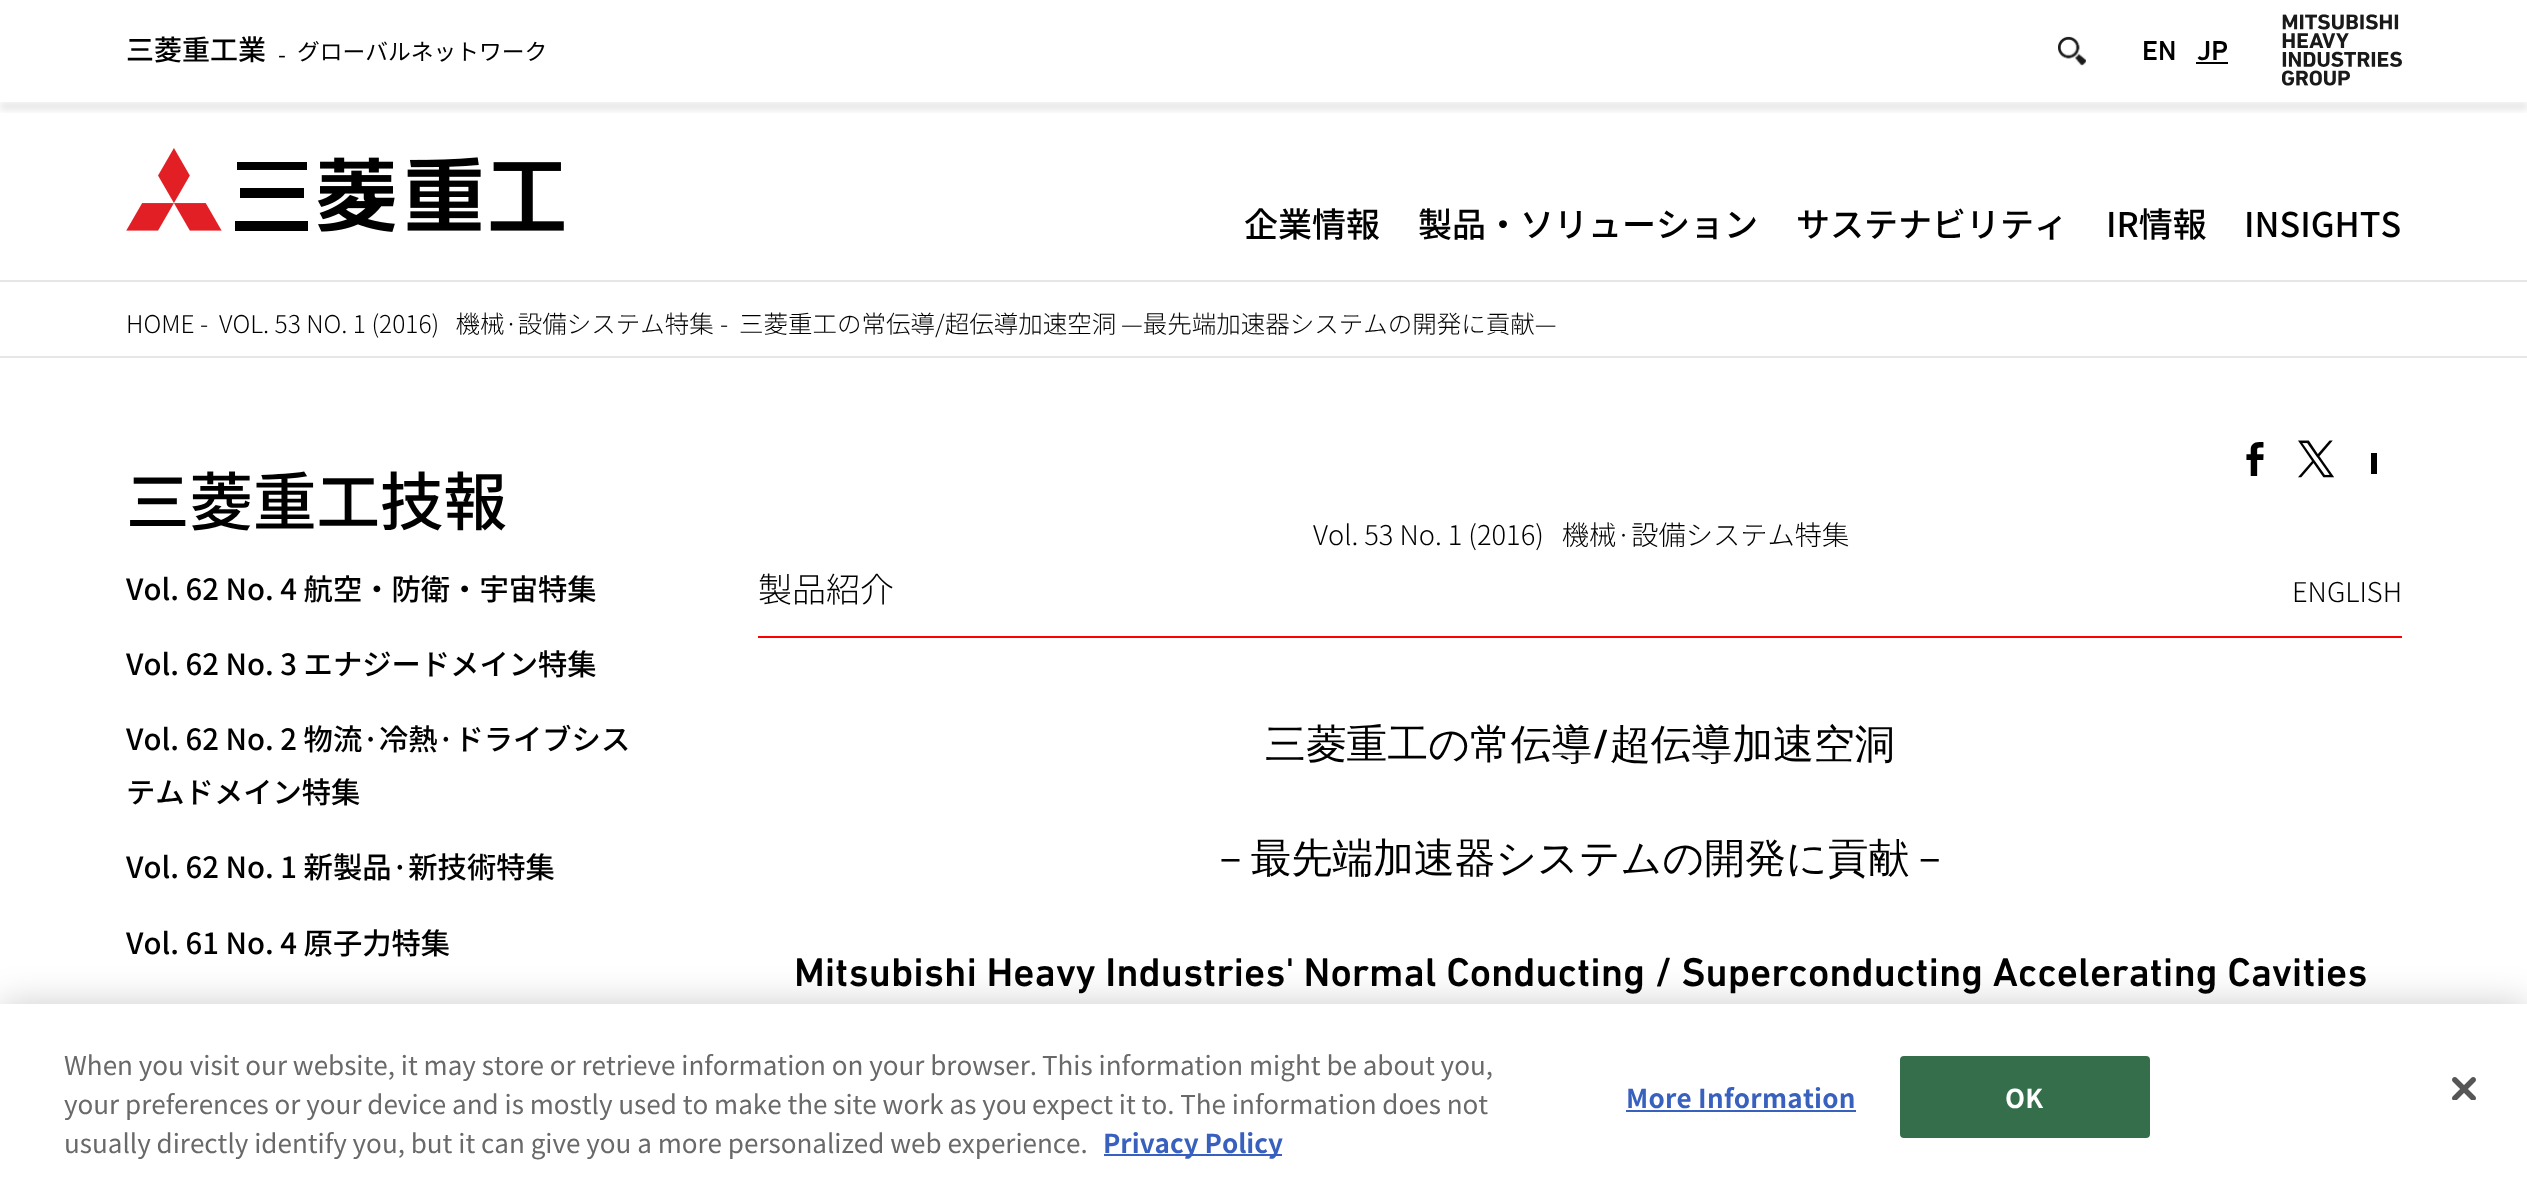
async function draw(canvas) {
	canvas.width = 2527;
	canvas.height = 1182;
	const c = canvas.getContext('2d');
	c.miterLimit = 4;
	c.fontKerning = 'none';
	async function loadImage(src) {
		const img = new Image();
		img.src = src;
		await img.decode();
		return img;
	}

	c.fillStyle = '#fff';
	c.fillRect(0, 0, 2527, 1182);
	c.font = '500 28px Noto Sans JP';
	c.fillStyle = '#000';
	c.fillText('三菱重工業', 126, 60);
	c.font = '22.75px Noto Sans JP';
	c.fillText('-', 278, 63);
	c.fillText('グローバルネットワーク', 297, 60);
	c.drawImage(await loadImage('img1.png'), 2058, 36, 28, 30);
	c.font = '500 28px "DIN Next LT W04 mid"';
	c.fillText('EN', 2142, 60);
	c.fillText('JP', 2197, 60);
	c.fillRect(2196, 62, 32, 2);
	c.drawImage(await loadImage('img2.png'), 2282, 14, 120, 72);
	c.save();
	c.beginPath();
	c.rect(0, 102, 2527, 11);
	c.clip();
	c.fillStyle = '#0000001a';
	c.filter = 'blur(3.5px)';
	c.beginPath();
	c.rect(0, 102, 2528, 8);
	c.fill();
	c.filter = 'none';
	c.restore();
	c.drawImage(await loadImage('img3.png'), 126, 148, 438, 84);
	c.font = '500 34px Noto Sans JP';
	for (const [text, x, y] of [
		['企業情報', 1244, 237],
		['製品・ソリューション', 1418, 237],
		['サステナビリティ', 1796, 237],
		['IR情報', 2106, 237],
		['INSIGHTS', 2244, 237],
	]) {
		c.fillText(text, x, y);
	}
	c.fillStyle = '#e6e6e6';
	c.fillRect(0, 280, 2527, 2);
	c.fillRect(0, 356, 2527, 2);
	c.font = '300 24.5px Noto Sans JP';
	c.fillStyle = '#000';
	for (const [text, x, y] of [
		['HOME -', 126, 333],
		['VOL. 53 NO. 1 (2016)   機械·設備システム特集', 219, 333],
		['-', 720, 333],
		['三菱重工の常伝導/超伝導加速空洞', 739, 333],
		['—最先端加速器システムの開発に貢献—', 1121, 333],
	]) {
		c.fillText(text, x, y);
	}
	c.font = '500 63.5px Noto Sans JP';
	c.fillText('三菱重工技報', 126, 525);
	c.font = '500 29.3px Noto Sans JP';
	for (const [text, x, y] of [
		['Vol. 62 No. 4 航空・防衛・宇宙特集', 126, 600],
		['Vol. 62 No. 3 エナジードメイン特集', 126, 675],
		['Vol. 62 No. 2 物流·冷熱·ドライブシス', 126, 750],
		['テムドメイン特集', 126, 803],
		['Vol. 62 No. 1 新製品·新技術特集', 126, 878],
		['Vol. 61 No. 4 原子力特集', 126, 954],
	]) {
		c.fillText(text, x, y);
	}
	c.drawImage(await loadImage('img4.png'), 2246, 442, 18, 34);
	c.drawImage(await loadImage('img5.png'), 2298, 440, 36, 38);
	c.fillRect(2371, 453, 6, 21);
	c.font = '300 27.25px Noto Sans JP';
	c.fillText('Vol. 53 No. 1 (2016)   機械·設備システム特集', 1313, 545);
	c.font = '300 34px Noto Sans JP';
	c.fillText('製品紹介', 758, 602);
	c.font = '300 27.25px Noto Sans JP';
	c.fillText('ENGLISH', 2292, 602);
	c.fillStyle = '#f00';
	c.fillRect(758, 636, 1644, 2);
	c.font = '500 40.8px WenQuanYi Zen Hei';
	c.fillStyle = '#000';
	c.fillText('三菱重工の常伝導', 1265, 758);
	c.font = '500 40.8px "DIN Next LT W04 mid"';
	c.fillText('/', 1592, 758);
	c.font = '500 40.8px WenQuanYi Zen Hei';
	c.fillText('超伝導加速空洞', 1610, 758);
	c.fillText('－最先端加速器システムの開発に貢献－', 1210, 872);
	c.font = '500 40.8px "DIN Next LT W04 mid"';
	c.fillText('Mitsubishi Heavy Industries\' Normal Conducting / Superconducting Accelerating Cavities', 794, 986);
	c.fillStyle = '#00000033';
	c.filter = 'blur(18px)';
	c.beginPath();
	c.rect(0, 1004, 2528, 178);
	c.fill();
	c.filter = 'none';
	c.fillStyle = '#fff';
	c.fillRect(0, 1004, 2527, 178);
	c.font = '26.02px Noto Sans JP';
	c.fillStyle = '#696969';
	for (const [text, x, y] of [
		['When you visit our website, it may store or retrieve information on your browser.', 64, 1075],
		['This information might be about you,', 1042, 1075],
		['your preferences or your device and is mostly used to make the site work as you', 64, 1114],
		['expect it to. The information does not', 1032, 1114],
		['usually directly identify you, but it can give you a more personalized web experience.', 64, 1153],
	]) {
		c.fillText(text, x, y);
	}
	c.fillStyle = '#3860be';
	c.fillRect(1104, 1154, 178, 2);
	c.font = 'bold 26.02px Noto Sans JP';
	c.fillText('Privacy Policy', 1103, 1153);
	c.letterSpacing = '0.25px';
	c.fillText('More Information', 1626, 1108);
	c.fillRect(1626, 1110, 230, 2);
	c.fillStyle = '#346e4a';
	c.beginPath();
	c.roundRect(1901, 1057, 248, 80, 3);
	c.fill();
	c.strokeStyle = '#346e4a';
	c.lineWidth = 2;
	c.stroke();
	c.fillStyle = '#fff';
	c.fillText('OK', 2005, 1108);
	c.drawImage(await loadImage('img6.png'), 2452, 1077, 24, 23);
}

draw(document.querySelector('canvas'));
